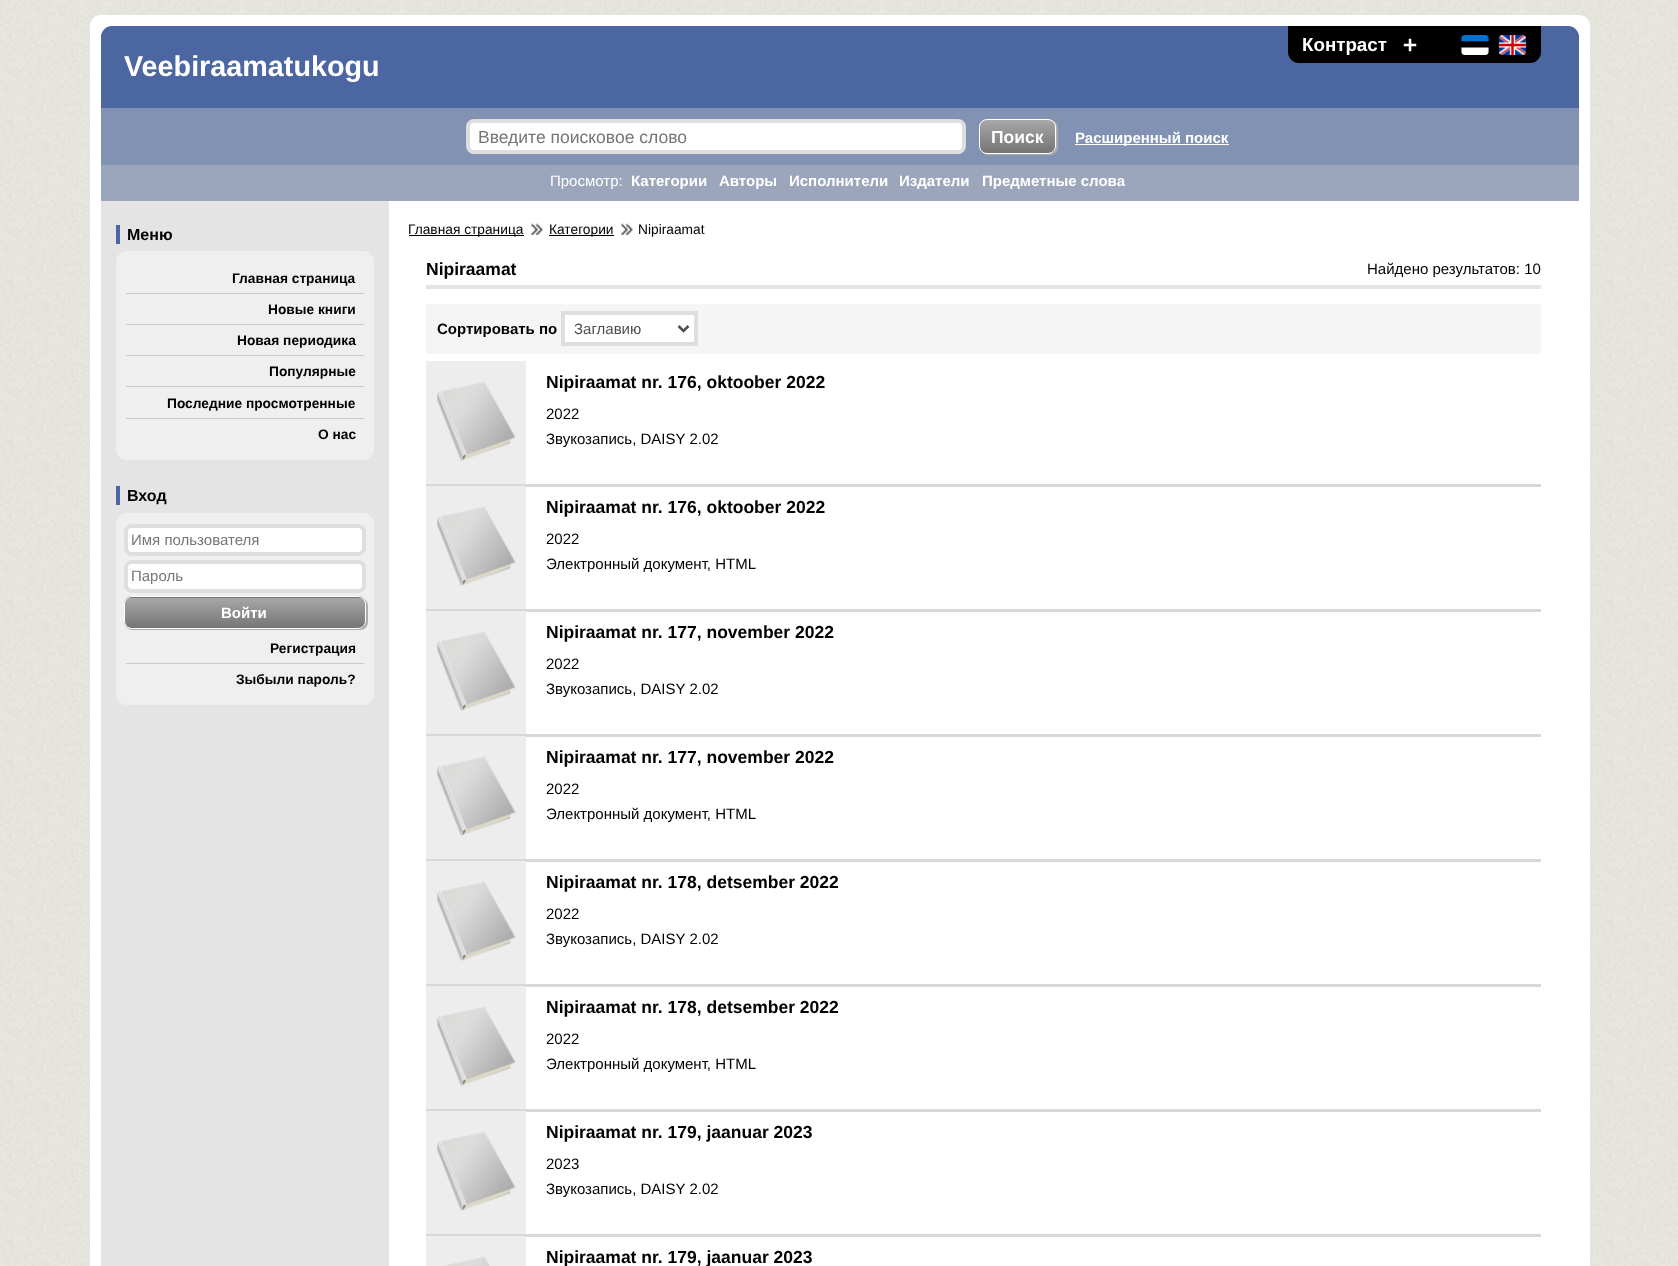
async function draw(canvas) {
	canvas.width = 1678;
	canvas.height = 1266;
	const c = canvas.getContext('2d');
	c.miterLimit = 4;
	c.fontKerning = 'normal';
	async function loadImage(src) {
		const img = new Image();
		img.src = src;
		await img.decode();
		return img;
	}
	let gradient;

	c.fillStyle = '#fff';
	c.fillRect(0, 0, 1678, 1266);
	c.drawImage(await loadImage('img1.png'), 0, 0, 1678, 15);
	c.drawImage(await loadImage('img2.png'), 0, 15, 1678, 1251);
	c.beginPath();
	c.roundRect(90, 15, 1500, 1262, 11);
	c.fill();
	c.fillStyle = '#4b66a0';
	c.beginPath();
	c.roundRect(101, 26, 1478, 82, [11, 11, 0, 0]);
	c.fill();
	c.fillStyle = '#000';
	c.beginPath();
	c.roundRect(1288, 26, 253, 37, [0, 0, 11, 11]);
	c.fill();
	c.font = 'bold 18.75px Liberation Sans';
	c.fillStyle = '#fff';
	c.fillText('Контраст', 1302, 51);
	c.drawImage(await loadImage('img3.png'), 1403, 38, 14, 14);
	c.drawImage(await loadImage('img4.png'), 1461, 35, 28, 20);
	c.drawImage(await loadImage('img5.png'), 1498, 35, 29, 20);
	c.font = 'bold 28.75px Liberation Sans';
	c.fillText('Veebiraamatukogu', 124, 76);
	c.fillStyle = '#8192b3';
	c.fillRect(101, 108, 1478, 57);
	c.fillStyle = '#fff';
	c.beginPath();
	c.roundRect(468, 121, 496, 31, 6);
	c.fill();
	c.strokeStyle = '#dedede';
	c.lineWidth = 4;
	c.stroke();
	c.save();
	c.beginPath();
	c.rect(478, 126, 481, 20);
	c.clip();
	c.font = '17.5px Liberation Sans';
	c.fillStyle = '#757575';
	c.fillText('Введите поисковое слово', 478, 143);
	c.restore();
	c.fillStyle = '#aaadae';
	c.filter = 'blur(0.5px)';
	c.beginPath();
	c.roundRect(980, 120, 78, 35, 8);
	c.fill();
	c.filter = 'none';
	c.save();
	c.beginPath();
	c.roundRect(979, 119, 77, 35, 8);
	c.clip();
	gradient = c.createLinearGradient(1018, 120, 1018, 153);
	gradient.addColorStop(0, '#a7a7a7');
	gradient.addColorStop(1, '#757575');
	c.fillStyle = gradient;
	c.fillRect(979, 120, 77, 33);
	c.restore();
	c.beginPath();
	c.roundRect(979.5, 119.5, 76, 34, 7.5);
	c.strokeStyle = '#fff';
	c.lineWidth = 1;
	c.stroke();
	c.font = 'bold 17.5px Liberation Sans';
	c.fillStyle = '#fff';
	c.fillText('Поиск', 991, 143);
	c.fillRect(1075, 144, 154, 1);
	c.font = 'bold 15px Liberation Sans';
	c.fillText('Расширенный поиск', 1075, 143);
	c.fillStyle = '#9ba6bd';
	c.fillRect(101, 165, 1478, 36);
	c.font = '15px Liberation Sans';
	c.fillStyle = '#fff';
	c.fillText('Просмотр:', 550, 186);
	c.font = 'bold 15px Liberation Sans';
	for (const [text, x, y] of [
		['Категории', 631, 186],
		['Авторы', 719, 186],
		['Исполнители', 789, 186],
		['Издатели', 899, 186],
		['Предметные слова', 982, 186],
	]) {
		c.fillText(text, x, y);
	}
	c.fillStyle = '#e4e4e4';
	c.fillRect(101, 201, 288, 1065);
	c.fillStyle = '#4b66a0';
	c.fillRect(116, 225, 4, 19);
	c.font = 'bold 16px Liberation Sans';
	c.fillStyle = '#000';
	c.fillText('Меню', 127, 240);
	c.fillStyle = '#efefef';
	c.beginPath();
	c.roundRect(116, 251, 258, 209, 11);
	c.fill();
	c.fillStyle = '#cbcbcb';
	c.fillRect(126, 293, 238, 1);
	c.font = 'bold 13.75px Liberation Sans';
	c.fillStyle = '#000';
	c.fillText('Главная страница', 232, 283);
	c.fillStyle = '#cbcbcb';
	c.fillRect(126, 324, 238, 1);
	c.fillStyle = '#000';
	c.fillText('Новые книги', 268, 314);
	c.fillStyle = '#cbcbcb';
	c.fillRect(126, 355, 238, 1);
	c.fillStyle = '#000';
	c.fillText('Новая периодика', 237, 345);
	c.fillStyle = '#cbcbcb';
	c.fillRect(126, 386, 238, 1);
	c.fillStyle = '#000';
	c.fillText('Популярные', 269, 376);
	c.fillStyle = '#cbcbcb';
	c.fillRect(126, 418, 238, 1);
	c.fillStyle = '#000';
	c.fillText('Последние просмотренные', 167, 408);
	c.fillText('О нас', 318, 439);
	c.fillRect(409, 235, 115, 1);
	c.font = '13.75px Liberation Sans';
	c.fillText('Главная страница', 408, 234);
	c.drawImage(await loadImage('img6.png'), 531, 223, 12, 12);
	c.fillRect(549, 235, 65, 1);
	c.fillText('Категории', 549, 234);
	c.drawImage(await loadImage('img6.png'), 621, 223, 12, 12);
	c.fillText('Nipiraamat', 638, 234);
	c.fillStyle = '#e4e4e4';
	c.fillRect(426, 285, 1115, 4);
	c.font = 'bold 17.5px Liberation Sans';
	c.fillStyle = '#000';
	c.fillText('Nipiraamat', 426, 275);
	c.font = '15px Liberation Sans';
	c.fillText('Найдено результатов: 10', 1367, 274);
	c.fillStyle = '#f5f5f5';
	c.fillRect(426, 304, 1115, 50);
	c.font = 'bold 15px Liberation Sans';
	c.fillStyle = '#000';
	c.fillText('Cортировать по', 437, 334);
	c.fillStyle = '#fff';
	c.beginPath();
	c.rect(563, 313, 133, 31);
	c.fill();
	c.strokeStyle = '#dedede';
	c.lineWidth = 4;
	c.stroke();
	c.beginPath();
	c.moveTo(678.5, 326);
	c.lineTo(683.5, 331);
	c.lineTo(688.5, 326);
	c.strokeStyle = '#4e4e4e';
	c.lineWidth = 2.5;
	c.stroke();
	c.font = '15px Liberation Sans';
	c.fillStyle = '#4e4e4e';
	c.fillText('Заглавию', 574, 334);
	c.fillStyle = '#ededed';
	c.fillRect(426, 361, 100, 123);
	c.fillStyle = '#d7d9d4';
	c.fillRect(426, 484, 100, 2);
	c.drawImage(await loadImage('img7.png'), 437, 381, 79, 80);
	c.fillRect(526, 484, 1015, 3);
	c.font = 'bold 17.5px Liberation Sans';
	c.fillStyle = '#000';
	c.fillText('Nipiraamat nr. 176, oktoober 2022', 546, 388);
	c.font = '15px Liberation Sans';
	c.fillText('2022', 546, 419);
	c.fillText('Звукозапись, DAISY 2.02', 546, 444);
	c.fillStyle = '#ededed';
	c.fillRect(426, 486, 100, 123);
	c.fillStyle = '#d7d9d4';
	c.fillRect(426, 609, 100, 2);
	c.drawImage(await loadImage('img7.png'), 437, 506, 79, 80);
	c.fillRect(526, 609, 1015, 3);
	c.font = 'bold 17.5px Liberation Sans';
	c.fillStyle = '#000';
	c.fillText('Nipiraamat nr. 176, oktoober 2022', 546, 513);
	c.font = '15px Liberation Sans';
	c.fillText('2022', 546, 544);
	c.fillText('Электронный документ, HTML', 546, 569);
	c.fillStyle = '#ededed';
	c.fillRect(426, 611, 100, 123);
	c.fillStyle = '#d7d9d4';
	c.fillRect(426, 734, 100, 2);
	c.drawImage(await loadImage('img7.png'), 437, 631, 79, 80);
	c.fillRect(526, 734, 1015, 3);
	c.font = 'bold 17.5px Liberation Sans';
	c.fillStyle = '#000';
	c.fillText('Nipiraamat nr. 177, november 2022', 546, 638);
	c.font = '15px Liberation Sans';
	c.fillText('2022', 546, 669);
	c.fillText('Звукозапись, DAISY 2.02', 546, 694);
	c.fillStyle = '#ededed';
	c.fillRect(426, 736, 100, 123);
	c.fillStyle = '#d7d9d4';
	c.fillRect(426, 859, 100, 2);
	c.drawImage(await loadImage('img7.png'), 437, 756, 79, 80);
	c.fillRect(526, 859, 1015, 3);
	c.font = 'bold 17.5px Liberation Sans';
	c.fillStyle = '#000';
	c.fillText('Nipiraamat nr. 177, november 2022', 546, 763);
	c.font = '15px Liberation Sans';
	c.fillText('2022', 546, 794);
	c.fillText('Электронный документ, HTML', 546, 819);
	c.fillStyle = '#ededed';
	c.fillRect(426, 861, 100, 123);
	c.fillStyle = '#d7d9d4';
	c.fillRect(426, 984, 100, 2);
	c.drawImage(await loadImage('img7.png'), 437, 881, 79, 80);
	c.fillRect(526, 984, 1015, 3);
	c.font = 'bold 17.5px Liberation Sans';
	c.fillStyle = '#000';
	c.fillText('Nipiraamat nr. 178, detsember 2022', 546, 888);
	c.font = '15px Liberation Sans';
	c.fillText('2022', 546, 919);
	c.fillText('Звукозапись, DAISY 2.02', 546, 944);
	c.fillStyle = '#ededed';
	c.fillRect(426, 986, 100, 123);
	c.fillStyle = '#d7d9d4';
	c.fillRect(426, 1109, 100, 2);
	c.drawImage(await loadImage('img7.png'), 437, 1006, 79, 80);
	c.fillRect(526, 1109, 1015, 3);
	c.font = 'bold 17.5px Liberation Sans';
	c.fillStyle = '#000';
	c.fillText('Nipiraamat nr. 178, detsember 2022', 546, 1013);
	c.font = '15px Liberation Sans';
	c.fillText('2022', 546, 1044);
	c.fillText('Электронный документ, HTML', 546, 1069);
	c.fillStyle = '#ededed';
	c.fillRect(426, 1111, 100, 123);
	c.fillStyle = '#d7d9d4';
	c.fillRect(426, 1234, 100, 2);
	c.drawImage(await loadImage('img7.png'), 437, 1131, 79, 80);
	c.fillRect(526, 1234, 1015, 3);
	c.font = 'bold 17.5px Liberation Sans';
	c.fillStyle = '#000';
	c.fillText('Nipiraamat nr. 179, jaanuar 2023', 546, 1138);
	c.font = '15px Liberation Sans';
	c.fillText('2023', 546, 1169);
	c.fillText('Звукозапись, DAISY 2.02', 546, 1194);
	c.fillStyle = '#ededed';
	c.fillRect(426, 1236, 100, 30);
	c.drawImage(await loadImage('img8.png'), 443, 1256, 47, 10);
	c.font = 'bold 17.5px Liberation Sans';
	c.fillStyle = '#000';
	c.fillText('Nipiraamat nr. 179, jaanuar 2023', 546, 1263);
	c.fillStyle = '#4b66a0';
	c.fillRect(116, 486, 4, 19);
	c.font = 'bold 16px Liberation Sans';
	c.fillStyle = '#000';
	c.fillText('Вход', 127, 501);
	c.fillStyle = '#efefef';
	c.beginPath();
	c.roundRect(116, 513, 258, 192, 11);
	c.fill();
	c.fillStyle = '#fff';
	c.beginPath();
	c.roundRect(126, 526, 238, 28, 6);
	c.fill();
	c.strokeStyle = '#dedede';
	c.lineWidth = 4;
	c.stroke();
	c.font = '15px Liberation Sans';
	c.fillStyle = '#757575';
	c.fillText('Имя пользователя', 131, 545);
	c.fillStyle = '#fff';
	c.beginPath();
	c.roundRect(126, 562, 238, 29, 6);
	c.fill();
	c.stroke();
	c.fillStyle = '#757575';
	c.fillText('Пароль', 131, 581);
	c.fillStyle = '#aaadae';
	c.filter = 'blur(0.5px)';
	c.beginPath();
	c.roundRect(125, 598, 243, 32, 8);
	c.fill();
	c.filter = 'none';
	c.save();
	c.beginPath();
	c.roundRect(124, 596, 242, 33, 8);
	c.clip();
	gradient = c.createLinearGradient(245, 568, 245, 598);
	gradient.addColorStop(0, '#a7a7a7');
	gradient.addColorStop(1, '#757575');
	c.fillStyle = gradient;
	c.fillRect(124, 596, 242, 2);
	gradient = c.createLinearGradient(245, 598, 245, 628);
	gradient.addColorStop(0, '#a7a7a7');
	gradient.addColorStop(1, '#757575');
	c.fillStyle = gradient;
	c.fillRect(124, 598, 242, 30);
	c.restore();
	c.beginPath();
	c.roundRect(124.5, 596.5, 241, 32, 7.5);
	c.strokeStyle = '#fff';
	c.lineWidth = 1;
	c.stroke();
	c.font = 'bold 15px Liberation Sans';
	c.fillStyle = '#fff';
	c.fillText('Войти', 221, 618);
	c.fillStyle = '#cbcbcb';
	c.fillRect(126, 663, 238, 1);
	c.font = 'bold 13.75px Liberation Sans';
	c.fillStyle = '#000';
	c.fillText('Регистрация', 270, 653);
	c.fillText('Зыбыли пароль?', 236, 684);
}

draw(document.querySelector('canvas'));
